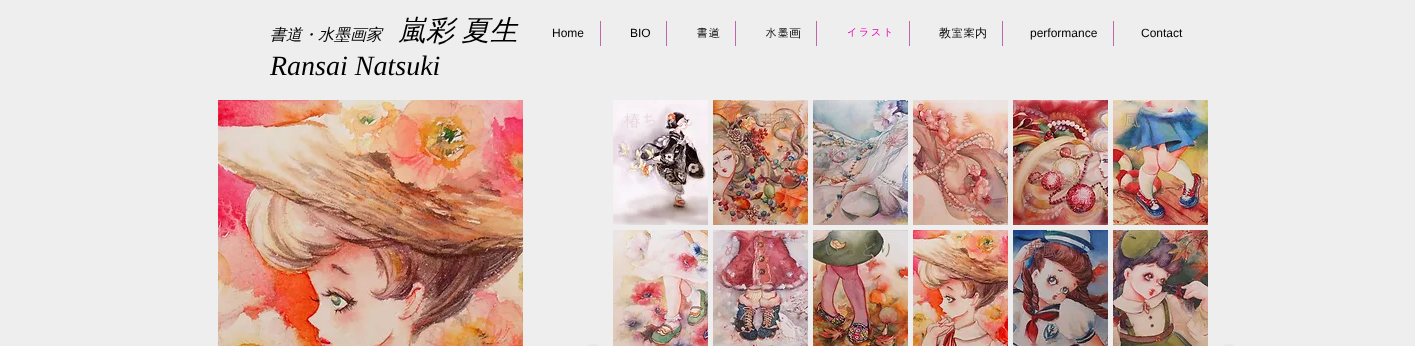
async function draw(canvas) {
	canvas.width = 1415;
	canvas.height = 346;
	const c = canvas.getContext('2d');
	c.miterLimit = 4;
	c.fontKerning = 'normal';
	async function loadImage(src) {
		const img = new Image();
		img.src = src;
		await img.decode();
		return img;
	}

	c.fillStyle = '#eee';
	c.fillRect(0, 0, 1415, 346);
	c.font = 'italic 500 16px WenQuanYi Zen Hei';
	c.fillStyle = '#000';
	c.fillText('書道・水墨画家', 270, 40);
	c.wordSpacing = '-1px';
	c.font = 'italic 500 28px WenQuanYi Zen Hei';
	c.fillText('嵐彩 夏生', 398, 40);
	c.wordSpacing = '0px';
	c.font = 'italic 28px Liberation Serif';
	c.fillText('Ransai Natsuki', 270, 75);
	c.font = '12px Liberation Sans';
	c.fillText('Home', 552, 37);
	c.fillStyle = '#bf68ac';
	c.fillRect(600, 21, 1, 25);
	c.fillStyle = '#000';
	c.fillText('BIO', 630, 37);
	c.fillStyle = '#bf68ac';
	c.fillRect(666, 21, 1, 25);
	c.font = '12px Dotum';
	c.fillStyle = '#000';
	c.fillText('書道', 696, 37);
	c.fillStyle = '#bf68ac';
	c.fillRect(735, 21, 1, 25);
	c.fillStyle = '#000';
	c.fillText('水墨', 765, 37);
	c.font = '500 12px WenQuanYi Zen Hei';
	c.fillText('画', 789, 37);
	c.fillStyle = '#bf68ac';
	c.fillRect(816, 21, 1, 25);
	c.font = '12px Dotum';
	c.fillStyle = '#ea04b8';
	c.fillText('イラスト', 846, 37);
	c.fillStyle = '#bf68ac';
	c.fillRect(909, 21, 1, 25);
	c.font = '500 12px WenQuanYi Zen Hei';
	c.fillStyle = '#000';
	c.fillText('教', 939, 37);
	c.font = '12px Dotum';
	c.fillText('室案', 951, 37);
	c.font = '500 12px WenQuanYi Zen Hei';
	c.fillText('内', 975, 37);
	c.fillStyle = '#bf68ac';
	c.fillRect(1002, 21, 1, 25);
	c.font = '12px Liberation Sans';
	c.fillStyle = '#000';
	c.fillText('performance', 1030, 37);
	c.fillStyle = '#bf68ac';
	c.fillRect(1113, 21, 1, 25);
	c.fillStyle = '#000';
	c.fillText('Contact', 1141, 37);
	c.drawImage(await loadImage('img1.png'), 218, 100, 305, 246);
	c.drawImage(await loadImage('img2.png'), 613, 100, 95, 125);
	c.font = '18px Dotum';
	c.fillStyle = '#e7d9dd';
	c.fillText('椿ちゃん', 623, 127);
	c.drawImage(await loadImage('img3.png'), 713, 100, 95, 125);
	c.fillStyle = '#bd8f73';
	c.fillText('秋の菩薩', 723, 127);
	c.drawImage(await loadImage('img4.png'), 813, 100, 95, 125);
	c.drawImage(await loadImage('img5.png'), 913, 100, 95, 125);
	c.fillStyle = '#db9789';
	c.fillText('芽吹き', 923, 127);
	c.drawImage(await loadImage('img6.png'), 1013, 100, 95, 125);
	c.fillStyle = '#ad5957';
	c.fillText('…', 1077, 127);
	c.drawImage(await loadImage('img7.png'), 1113, 100, 95, 125);
	c.fillStyle = '#ad9f8b';
	c.fillText('風', 1123, 127);
	c.drawImage(await loadImage('img8.png'), 613, 230, 95, 116);
	c.drawImage(await loadImage('img9.png'), 713, 230, 95, 116);
	c.fillStyle = '#c3858c';
	c.fillText('ぬくみ', 723, 257);
	c.drawImage(await loadImage('img10.png'), 813, 230, 95, 116);
	c.fillStyle = '#85816b';
	c.fillText('いろどり', 823, 257);
	c.drawImage(await loadImage('img11.png'), 913, 230, 95, 116);
	c.drawImage(await loadImage('img12.png'), 1013, 230, 95, 116);
	c.fillStyle = '#7e5559';
	c.fillText('潮風', 1023, 257);
	c.drawImage(await loadImage('img13.png'), 1113, 230, 95, 116);
	c.drawImage(await loadImage('img14.png'), 588, 344, 10, 2);
	c.drawImage(await loadImage('img15.png'), 1224, 344, 10, 2);
}

draw(document.querySelector('canvas'));
